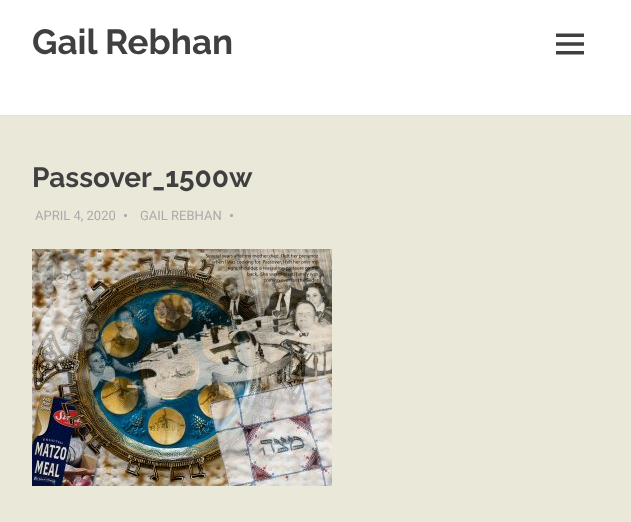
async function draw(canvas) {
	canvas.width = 631;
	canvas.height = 522;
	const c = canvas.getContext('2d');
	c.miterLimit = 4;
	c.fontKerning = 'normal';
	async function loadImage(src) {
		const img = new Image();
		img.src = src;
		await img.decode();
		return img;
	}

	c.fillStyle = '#eae8d9';
	c.fillRect(0, 0, 631, 522);
	c.fillStyle = '#fff';
	c.fillRect(0, 0, 631, 115);
	c.fillStyle = '#e0e0e0';
	c.fillRect(0, 115, 631, 1);
	c.font = 'bold 35px Raleway';
	c.fillStyle = '#404040';
	c.fillText('Gail Rebhan', 32, 54);
	c.drawImage(await loadImage('img1.png'), 556, 33, 28, 22);
	c.font = 'bold 28px Raleway';
	c.fillText('Passover_1500w', 32, 187);
	c.font = '13px Roboto';
	c.fillStyle = '#aaa';
	c.fillText('APRIL 4, 2020', 35, 220);
	c.font = '15px Roboto';
	c.fillText('•', 123, 221);
	c.font = '13px Roboto';
	c.fillText('GAIL REBHAN', 140, 220);
	c.font = '15px Roboto';
	c.fillText('•', 229, 221);
	c.drawImage(await loadImage('img2.png'), 32, 249, 300, 237);
}

draw(document.querySelector('canvas'));
